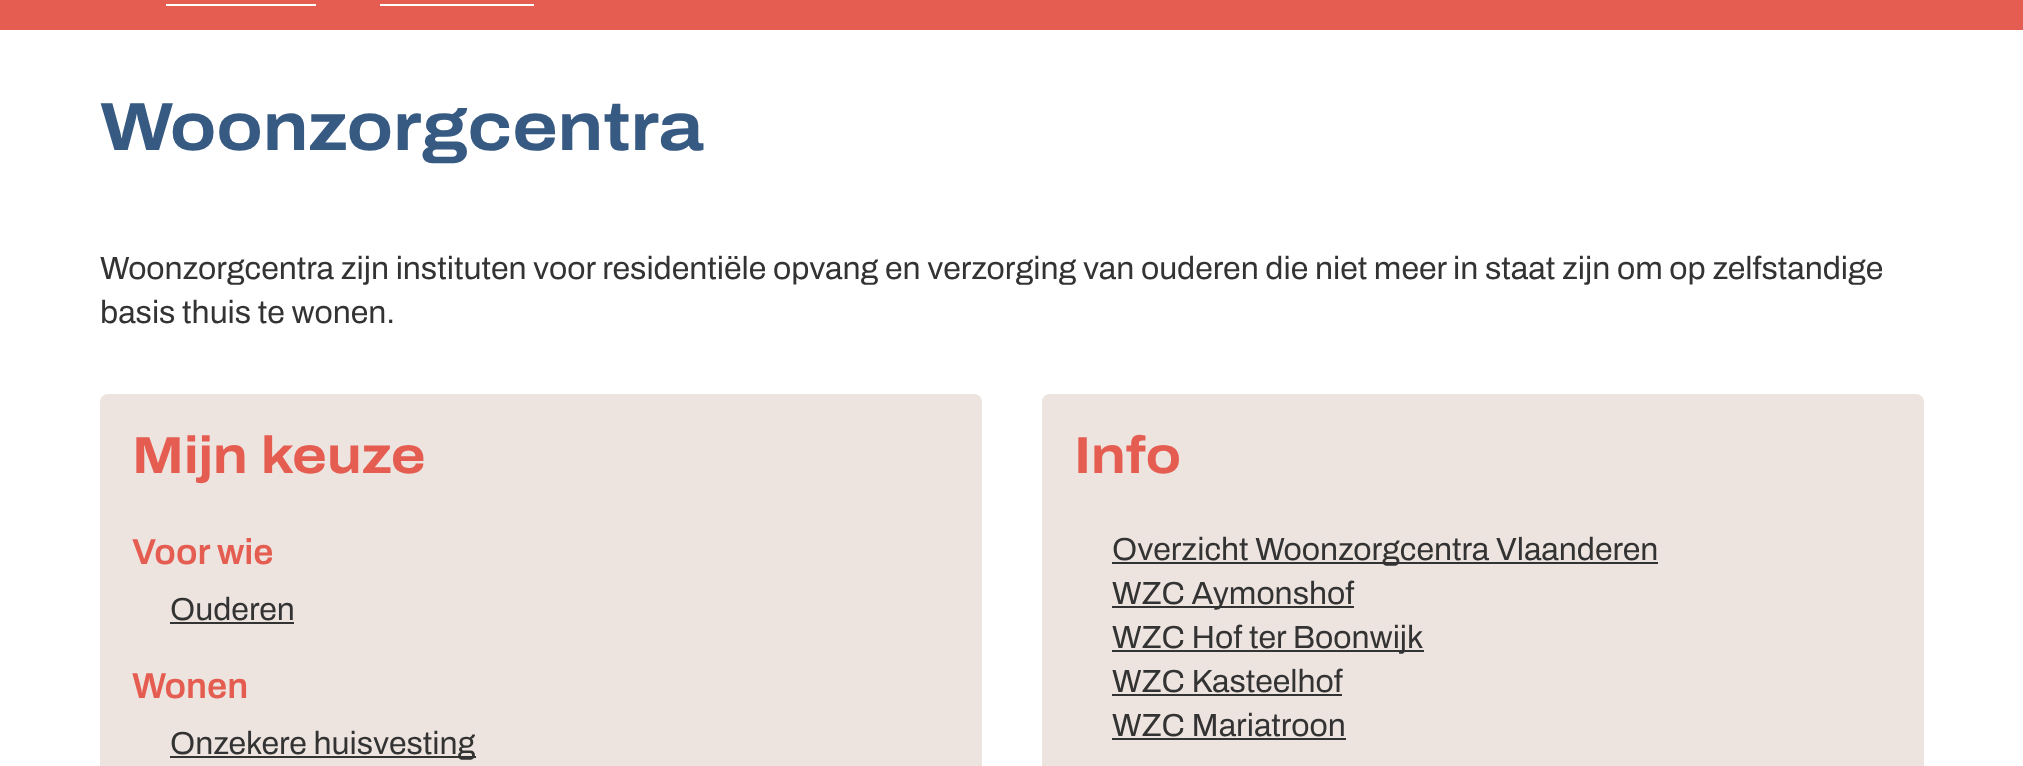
async function draw(canvas) {
	canvas.width = 2023;
	canvas.height = 766;
	const c = canvas.getContext('2d');
	c.miterLimit = 4;
	c.fontKerning = 'normal';

	c.fillStyle = '#fff';
	c.fillRect(0, 0, 2023, 766);
	for (const [x, y, w, h, color] of [
		[0, 0, 2023, 30, '#e55d51'],
		[166, 4, 150, 2, '#fff'],
		[380, 4, 154, 2, '#fff'],
	]) {
		c.fillStyle = color;
		c.fillRect(x, y, w, h);
	}
	c.font = 'bold 68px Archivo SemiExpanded';
	c.fillStyle = '#375a82';
	c.fillText('Woonzorgcentra', 100, 150);
	c.font = '600 32px Archivo';
	c.fillStyle = '#333';
	c.fillText('Woonzorgcentra zijn instituten voor residentiële opvang en verzorging van ouderen die niet meer in staat zijn om op zelfstandige', 100, 279);
	c.fillText('basis thuis te wonen.', 100, 323);
	c.fillStyle = '#ede4e0';
	c.beginPath();
	c.roundRect(101, 395, 880, 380, 7);
	c.fill();
	c.strokeStyle = '#ede4e0';
	c.lineWidth = 2;
	c.stroke();
	c.font = 'bold 52px Archivo SemiExpanded';
	c.fillStyle = '#e55d51';
	c.fillText('Mijn keuze', 132, 473);
	c.font = '600 36px "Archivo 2"';
	c.fillText('Voor wie', 132, 564);
	c.font = '600 32px Archivo';
	c.fillStyle = '#333';
	c.fillText('Ouderen', 170, 620);
	c.fillRect(170, 622, 124, 2);
	c.font = '600 36px "Archivo 2"';
	c.fillStyle = '#e55d51';
	c.fillText('Wonen', 132, 698);
	c.fillStyle = '#333';
	c.fillRect(170, 756, 306, 2);
	c.font = '600 32px Archivo';
	c.fillText('Onzekere huisvesting', 170, 754);
	c.fillStyle = '#ede4e0';
	c.beginPath();
	c.roundRect(1043, 395, 880, 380, 7);
	c.fill();
	c.stroke();
	c.font = 'bold 52px Archivo SemiExpanded';
	c.fillStyle = '#e55d51';
	c.fillText('Info', 1074, 473);
	c.fillStyle = '#333';
	c.fillRect(1112, 562, 546, 2);
	c.font = '600 32px Archivo';
	c.fillText('Overzicht Woonzorgcentra Vlaanderen', 1112, 560);
	c.fillRect(1112, 606, 242, 2);
	c.fillText('WZC Aymonshof', 1112, 604);
	c.fillRect(1112, 650, 312, 2);
	c.fillText('WZC Hof ter Boonwijk', 1112, 648);
	c.fillText('WZC Kasteelhof', 1112, 692);
	c.fillRect(1112, 694, 230, 2);
	c.fillText('WZC Mariatroon', 1112, 736);
	c.fillRect(1112, 738, 234, 2);
}

draw(document.querySelector('canvas'));
